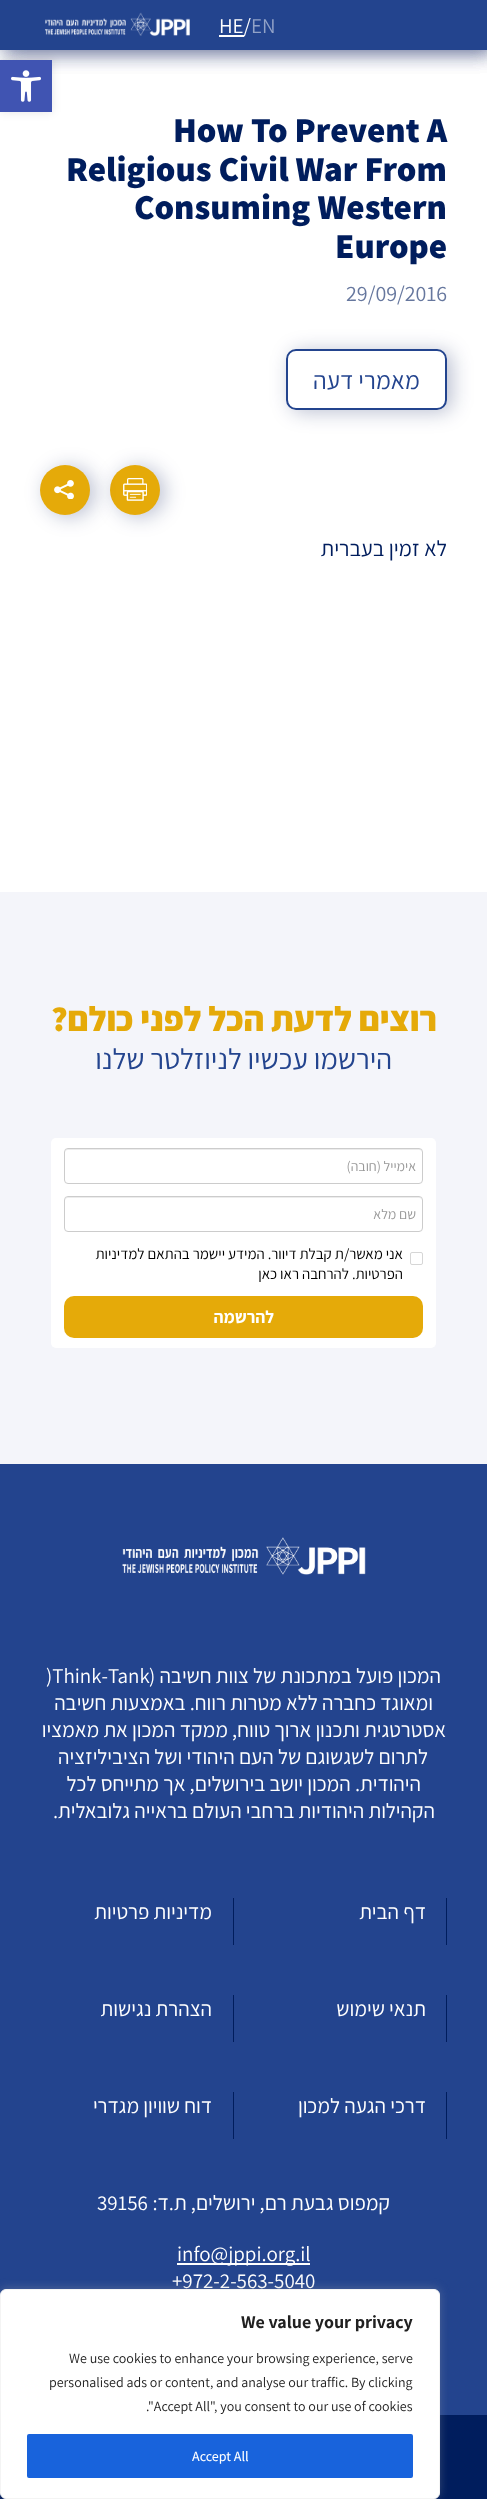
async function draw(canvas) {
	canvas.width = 487;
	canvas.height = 2499;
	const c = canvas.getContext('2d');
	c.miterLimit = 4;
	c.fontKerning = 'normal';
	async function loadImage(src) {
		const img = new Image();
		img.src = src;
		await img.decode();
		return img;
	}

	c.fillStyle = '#fff';
	c.fillRect(0, 0, 487, 2499);
	c.fillStyle = '#00115545';
	c.filter = 'blur(10px)';
	c.beginPath();
	c.rect(5, 2, 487, 50);
	c.fill();
	c.filter = 'none';
	c.filter = 'blur(10px)';
	c.beginPath();
	c.rect(5, -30, 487, 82);
	c.fill();
	c.filter = 'none';
	c.filter = 'blur(10px)';
	c.beginPath();
	c.rect(5, 2, 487, 50);
	c.fill();
	c.filter = 'none';
	c.fillStyle = '#23448e';
	c.fillRect(0, 0, 487, 50);
	c.font = '200 21px Assistant';
	c.fillStyle = '#91a2c7';
	c.fillText('EN', 251, 33);
	c.fillStyle = '#fff';
	c.fillRect(219, 35, 25, 2);
	c.fillText('HE/', 219, 33);
	c.drawImage(await loadImage('img1.png'), 45, 12, 145, 25);
	c.font = '800 35px Assistant';
	c.fillStyle = '#001d5d';
	for (const [text, x, y] of [
		['How To Prevent A', 173, 142],
		['Religious Civil War From', 66, 181],
		['Consuming Western', 134, 219],
		['Europe', 335, 258],
	]) {
		c.fillText(text, x, y);
	}
	c.font = '200 22px Assistant';
	c.fillStyle = '#66779e';
	c.fillText('29/09/2016', 346, 301);
	c.save();
	c.beginPath();
	c.moveTo(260, 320);
	c.lineTo(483, 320);
	c.lineTo(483, 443);
	c.lineTo(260, 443);
	c.closePath();
	c.moveTo(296, 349);
	c.lineTo(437, 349);
	c.bezierCurveTo(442.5, 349, 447, 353.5, 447, 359);
	c.lineTo(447, 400);
	c.bezierCurveTo(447, 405.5, 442.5, 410, 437, 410);
	c.lineTo(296, 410);
	c.bezierCurveTo(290.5, 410, 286, 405.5, 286, 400);
	c.lineTo(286, 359);
	c.bezierCurveTo(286, 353.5, 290.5, 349, 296, 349);
	c.closePath();
	c.clip('evenodd');
	c.fillStyle = '#00115545';
	c.filter = 'blur(10px)';
	c.beginPath();
	c.roundRect(291, 351, 161, 61, 10);
	c.fill();
	c.filter = 'none';
	c.restore();
	c.beginPath();
	c.roundRect(287, 350, 159, 59, 9);
	c.strokeStyle = '#23448e';
	c.lineWidth = 2;
	c.stroke();
	c.direction = 'rtl';
	c.font = '200 25px Assistant';
	c.fillStyle = '#23448e';
	c.fillText('מאמרי דעה', 420, 389);
	c.fillStyle = '#00115545';
	c.filter = 'blur(10px)';
	c.beginPath();
	c.roundRect(115, 467, 50, 50, 25);
	c.fill();
	c.filter = 'none';
	c.fillStyle = '#e5aa09';
	c.beginPath();
	c.arc(135, 490, 25, 0, 2 * Math.PI);
	c.fill();
	c.drawImage(await loadImage('img2.png'), 123, 478, 24, 23);
	c.fillStyle = '#00115545';
	c.filter = 'blur(10px)';
	c.beginPath();
	c.roundRect(45, 467, 50, 50, 25);
	c.fill();
	c.filter = 'none';
	c.fillStyle = '#e5aa09';
	c.beginPath();
	c.arc(65, 490, 25, 0, 2 * Math.PI);
	c.fill();
	c.drawImage(await loadImage('img3.png'), 54, 480, 20, 19);
	c.font = '200 22px Assistant';
	c.fillStyle = '#001d5d';
	c.fillText('לא זמין בעברית', 447, 556);
	c.fillStyle = '#0000001a';
	c.filter = 'blur(5px)';
	c.beginPath();
	c.rect(0, 60, 52, 52);
	c.fill();
	c.filter = 'none';
	c.fillStyle = '#4054b2';
	c.fillRect(0, 60, 52, 52);
	c.drawImage(await loadImage('img4.png'), 11, 70, 30, 32);
	c.fillStyle = '#f4f5fa';
	c.fillRect(0, 892, 487, 572);
	c.font = '800 35px Assistant';
	c.fillStyle = '#e5aa09';
	c.fillText('רוצים לדעת הכל לפני כולם?', 437, 1031);
	c.font = '200 29px Assistant';
	c.fillStyle = '#23448e';
	c.fillText('הירשמו עכשיו לניוזלטר שלנו', 392, 1069);
	c.fillStyle = '#fff';
	c.beginPath();
	c.roundRect(51, 1138, 385, 210, 5);
	c.fill();
	c.fillStyle = '#ececec';
	c.beginPath();
	c.moveTo(68, 1150);
	c.lineTo(419, 1150);
	c.bezierCurveTo(421, 1150, 422, 1151, 422, 1153);
	c.bezierCurveTo(422, 1151, 421, 1149, 419, 1149);
	c.lineTo(68, 1149);
	c.lineTo(66, 1150);
	c.lineTo(65, 1153);
	c.bezierCurveTo(65, 1151, 66, 1150, 68, 1150);
	c.closePath();
	c.fill();
	c.beginPath();
	c.roundRect(64.5, 1148.5, 358, 35, 3.5);
	c.strokeStyle = '#ccc';
	c.lineWidth = 1;
	c.stroke();
	c.font = '200 14px Assistant';
	c.fillStyle = '#999';
	c.fillText('אימייל (חובה)', 416, 1171);
	c.fillStyle = '#ececec';
	c.beginPath();
	c.moveTo(68, 1198);
	c.lineTo(419, 1198);
	c.bezierCurveTo(421, 1198, 422, 1199, 422, 1201);
	c.bezierCurveTo(422, 1199, 421, 1197, 419, 1197);
	c.lineTo(68, 1197);
	c.lineTo(66, 1198);
	c.lineTo(65, 1201);
	c.bezierCurveTo(65, 1199, 66, 1198, 68, 1198);
	c.closePath();
	c.fill();
	c.beginPath();
	c.roundRect(64.5, 1196.5, 358, 35, 3.5);
	c.stroke();
	c.fillStyle = '#999';
	c.fillText('שם מלא', 416, 1219);
	c.beginPath();
	c.roundRect(410.5, 1252.5, 12, 12, 1.5);
	c.strokeStyle = '#d6d6d6';
	c.stroke();
	c.font = '200 15px Assistant';
	c.fillStyle = '#000';
	c.fillText('אני מאשר/ת קבלת דיוור. המידע יישמר בהתאם למדיניות', 403, 1259);
	c.fillText('הפרטיות. להרחבה ראו כאן', 403, 1279);
	c.fillStyle = '#e5aa09';
	c.beginPath();
	c.roundRect(64, 1296, 359, 42, 10);
	c.fill();
	c.font = 'bold 17.5px Assistant';
	c.fillStyle = '#fff';
	c.fillText('להרשמה', 274, 1323);
	c.fillStyle = '#23448e';
	c.fillRect(0, 1464, 487, 951);
	c.drawImage(await loadImage('img5.png'), 122, 1537, 244, 38);
	c.font = '200 21px Assistant';
	c.fillStyle = '#fff';
	c.fillText('המכון פועל במתכונת של צוות חשיבה (', 441, 1683);
	c.direction = 'ltr';
	c.fillText(')Think-Tank', 46, 1683);
	c.direction = 'rtl';
	for (const [text, x, y] of [
		['ומאוגד כחברה ללא מטרות רווח. באמצעות חשיבה', 433, 1710],
		['אסטרטגית ותכנון ארוך טווח, ממקד המכון את מאמציו', 446, 1737],
		['לתרום לשגשוגם של העם היהודי ושל הציביליזציה', 428, 1764],
		['היהודית. המכון יושב בירושלים, אך מתייחס לכל', 421, 1791],
		['הקהילות היהודיות ברחבי העולם בראייה גלובאלית.', 435, 1818],
	]) {
		c.fillText(text, x, y);
	}
	c.fillStyle = '#001d5d';
	c.fillRect(446, 1898, 1, 47);
	c.fillStyle = '#fff';
	c.fillText('דף הבית', 426, 1919);
	c.fillStyle = '#001d5d';
	c.fillRect(233, 1898, 1, 47);
	c.fillStyle = '#fff';
	c.fillText('מדיניות פרטיות', 212, 1919);
	c.fillStyle = '#001d5d';
	c.fillRect(446, 1995, 1, 47);
	c.fillStyle = '#fff';
	c.fillText('תנאי שימוש', 426, 2016);
	c.fillStyle = '#001d5d';
	c.fillRect(233, 1995, 1, 47);
	c.fillStyle = '#fff';
	c.fillText('הצהרת נגישות', 212, 2016);
	c.fillStyle = '#001d5d';
	c.fillRect(446, 2092, 1, 47);
	c.fillStyle = '#fff';
	c.fillText('דרכי הגעה למכון', 426, 2113);
	c.fillStyle = '#001d5d';
	c.fillRect(233, 2092, 1, 47);
	c.fillStyle = '#fff';
	c.fillText('דוח שוויון מגדרי', 212, 2113);
	c.fillText('קמפוס גבעת רם, ירושלים, ת.ד:', 390, 2210);
	c.direction = 'ltr';
	c.fillText('39156', 97, 2210);
	c.fillRect(177, 2263, 133, 2);
	c.fillText('info@jppi.org.il', 177, 2261);
	c.fillText('+972-2-563-5040', 172, 2288);
	c.fillStyle = '#001d5d';
	c.fillRect(0, 2415, 487, 84);
	c.fillStyle = '#acabab4d';
	c.filter = 'blur(5px)';
	c.beginPath();
	c.roundRect(0, 2288, 440, 210, 6);
	c.fill();
	c.filter = 'none';
	c.fillStyle = '#fff';
	c.beginPath();
	c.roundRect(0.5, 2289.5, 439, 209, 5.5);
	c.fill();
	c.strokeStyle = '#f4f4f4';
	c.stroke();
	c.font = 'bold 18px Assistant';
	c.fillStyle = '#212121';
	c.fillText('We value your privacy', 241, 2328);
	c.font = '200 14px Assistant';
	for (const [text, x, y] of [
		['We use cookies to enhance your browsing experience, serve', 69, 2363],
		['personalised ads or content, and analyse our traffic. By clicking', 49, 2387],
		['."Accept All", you consent to our use of cookies', 146, 2411],
	]) {
		c.fillText(text, x, y);
	}
	c.fillStyle = '#1863dc';
	c.beginPath();
	c.roundRect(28, 2435, 384, 42, 1);
	c.fill();
	c.strokeStyle = '#1863dc';
	c.lineWidth = 2;
	c.stroke();
	c.font = '500 14px Assistant';
	c.fillStyle = '#fff';
	c.fillText('Accept All', 192, 2461);
}

draw(document.querySelector('canvas'));
